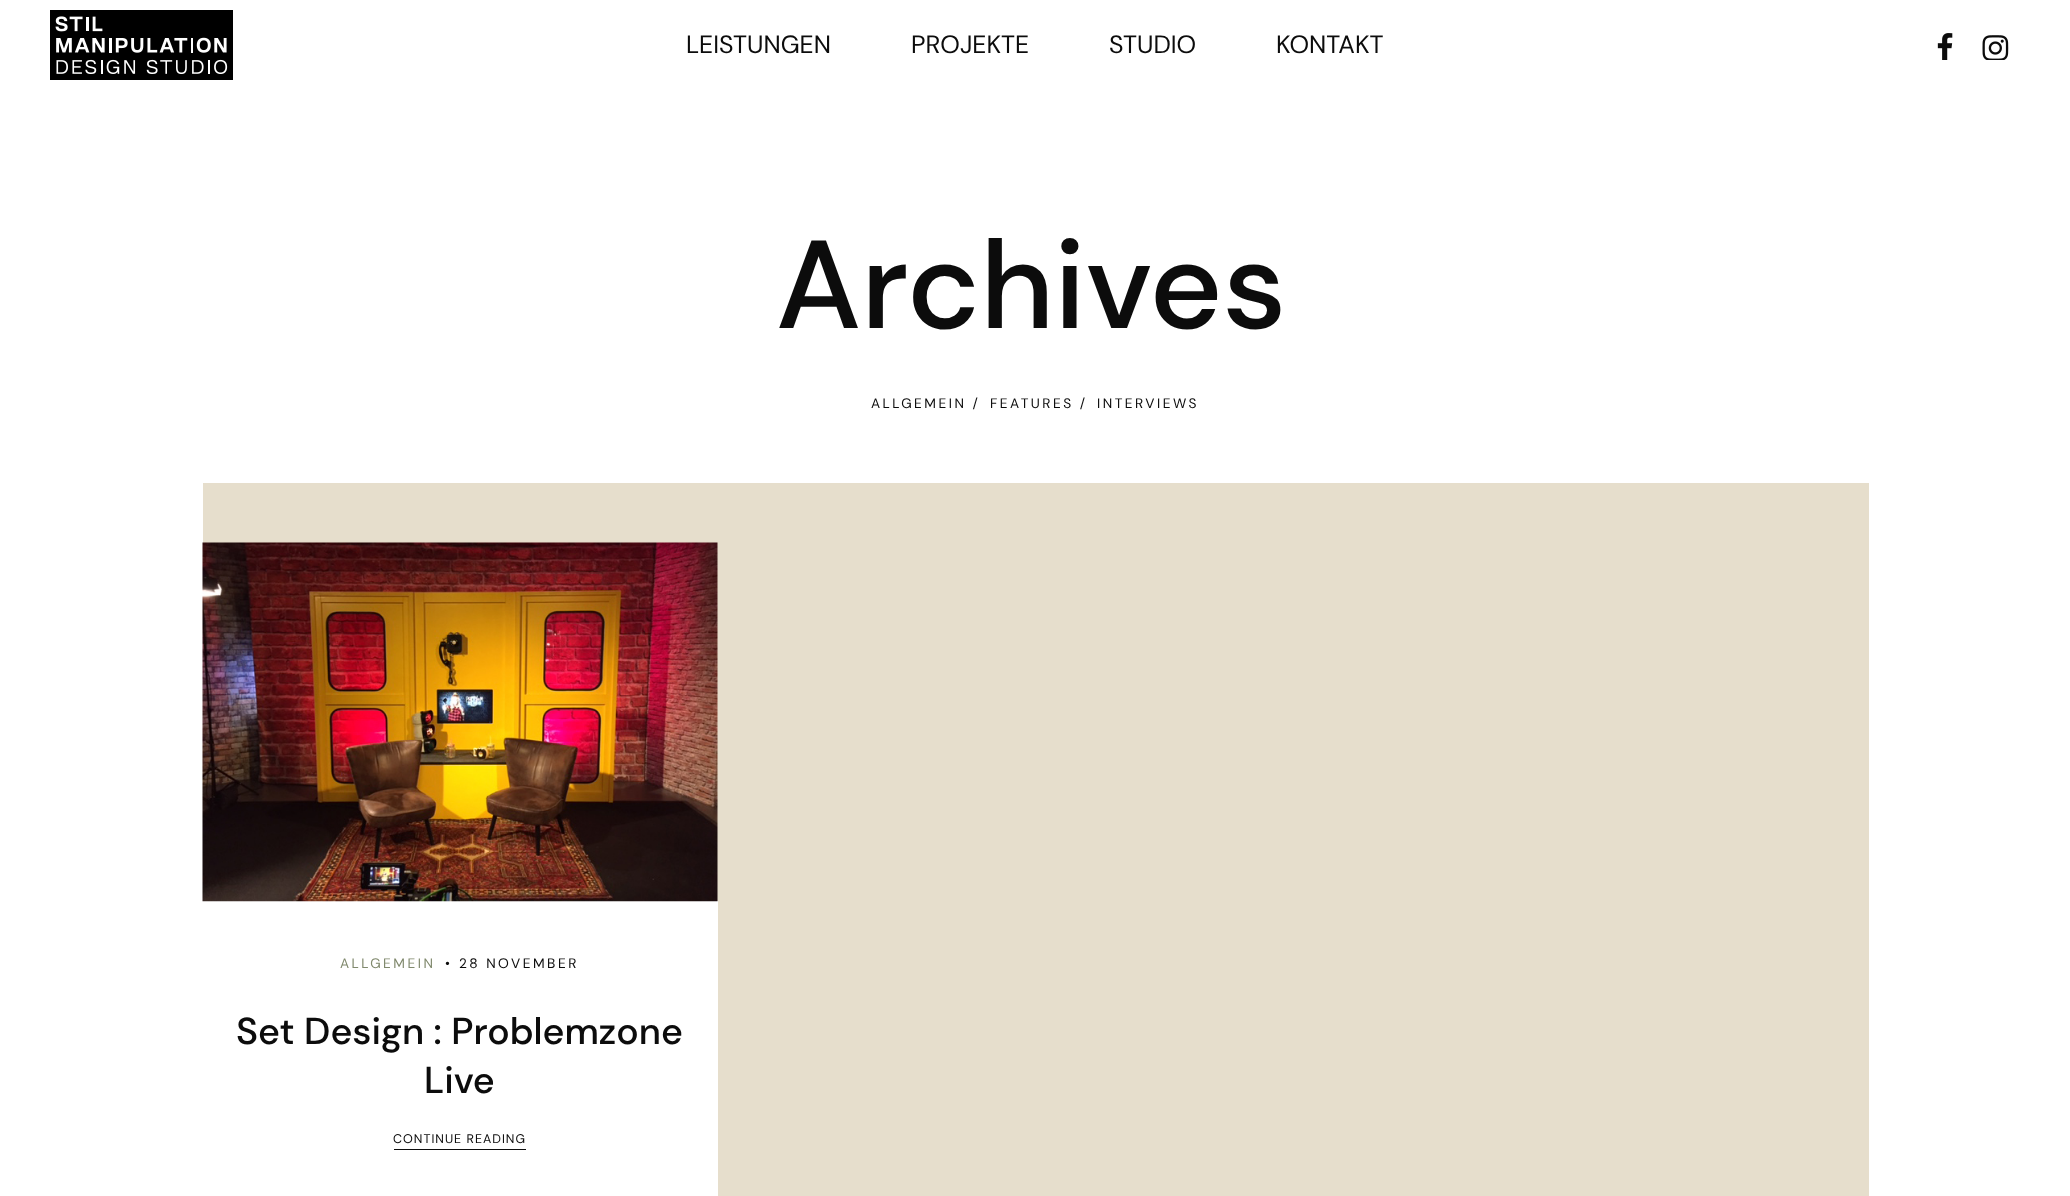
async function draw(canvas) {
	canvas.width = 2070;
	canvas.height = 1196;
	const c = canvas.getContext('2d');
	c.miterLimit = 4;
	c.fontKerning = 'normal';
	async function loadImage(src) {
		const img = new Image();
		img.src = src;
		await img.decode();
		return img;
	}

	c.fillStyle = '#fff';
	c.fillRect(0, 0, 2070, 1196);
	c.drawImage(await loadImage('img1.png'), 50, 10, 183, 70);
	c.font = '25px DM Sans';
	c.fillStyle = '#0c0c0c';
	for (const [text, x, y] of [
		['LEISTUNGEN', 686, 53],
		['PROJEKTE', 911, 53],
		['STUDIO', 1109, 53],
		['KONTAKT', 1276, 53],
	]) {
		c.fillText(text, x, y);
	}
	c.drawImage(await loadImage('img2.png'), 1937, 33, 16, 27);
	c.drawImage(await loadImage('img3.png'), 1982, 35, 27, 25);
	c.font = '500 125px DM Sans';
	c.fillText('Archives', 776, 328);
	c.letterSpacing = '2.5px';
	c.font = '13.75px DM Sans';
	for (const [text, x, y] of [
		['ALLGEMEIN /', 871, 408],
		['FEATURES /', 990, 408],
		['INTERVIEWS', 1097, 408],
	]) {
		c.fillText(text, x, y);
	}
	c.fillStyle = '#e6decc';
	c.fillRect(203, 483, 1666, 713);
	c.fillStyle = '#fff';
	c.fillRect(203, 901, 515, 295);
	c.drawImage(await loadImage('img4.png'), 202, 542, 516, 360);
	c.fillStyle = '#80896d';
	c.fillText('ALLGEMEIN', 340, 968);
	c.fillStyle = '#0c0c0c';
	c.fillText('•', 445, 968);
	c.fillText('28 NOVEMBER', 459, 968);
	c.letterSpacing = '0px';
	c.font = '500 37.5px DM Sans';
	c.fillText('Set Design : Problemzone', 236, 1044);
	c.fillText('Live', 424, 1093);
	c.fillRect(394, 1149, 132, 1);
	c.letterSpacing = '1px';
	c.font = '12.5px DM Sans';
	c.fillText('CONTINUE READING', 393, 1143);
}

draw(document.querySelector('canvas'));
